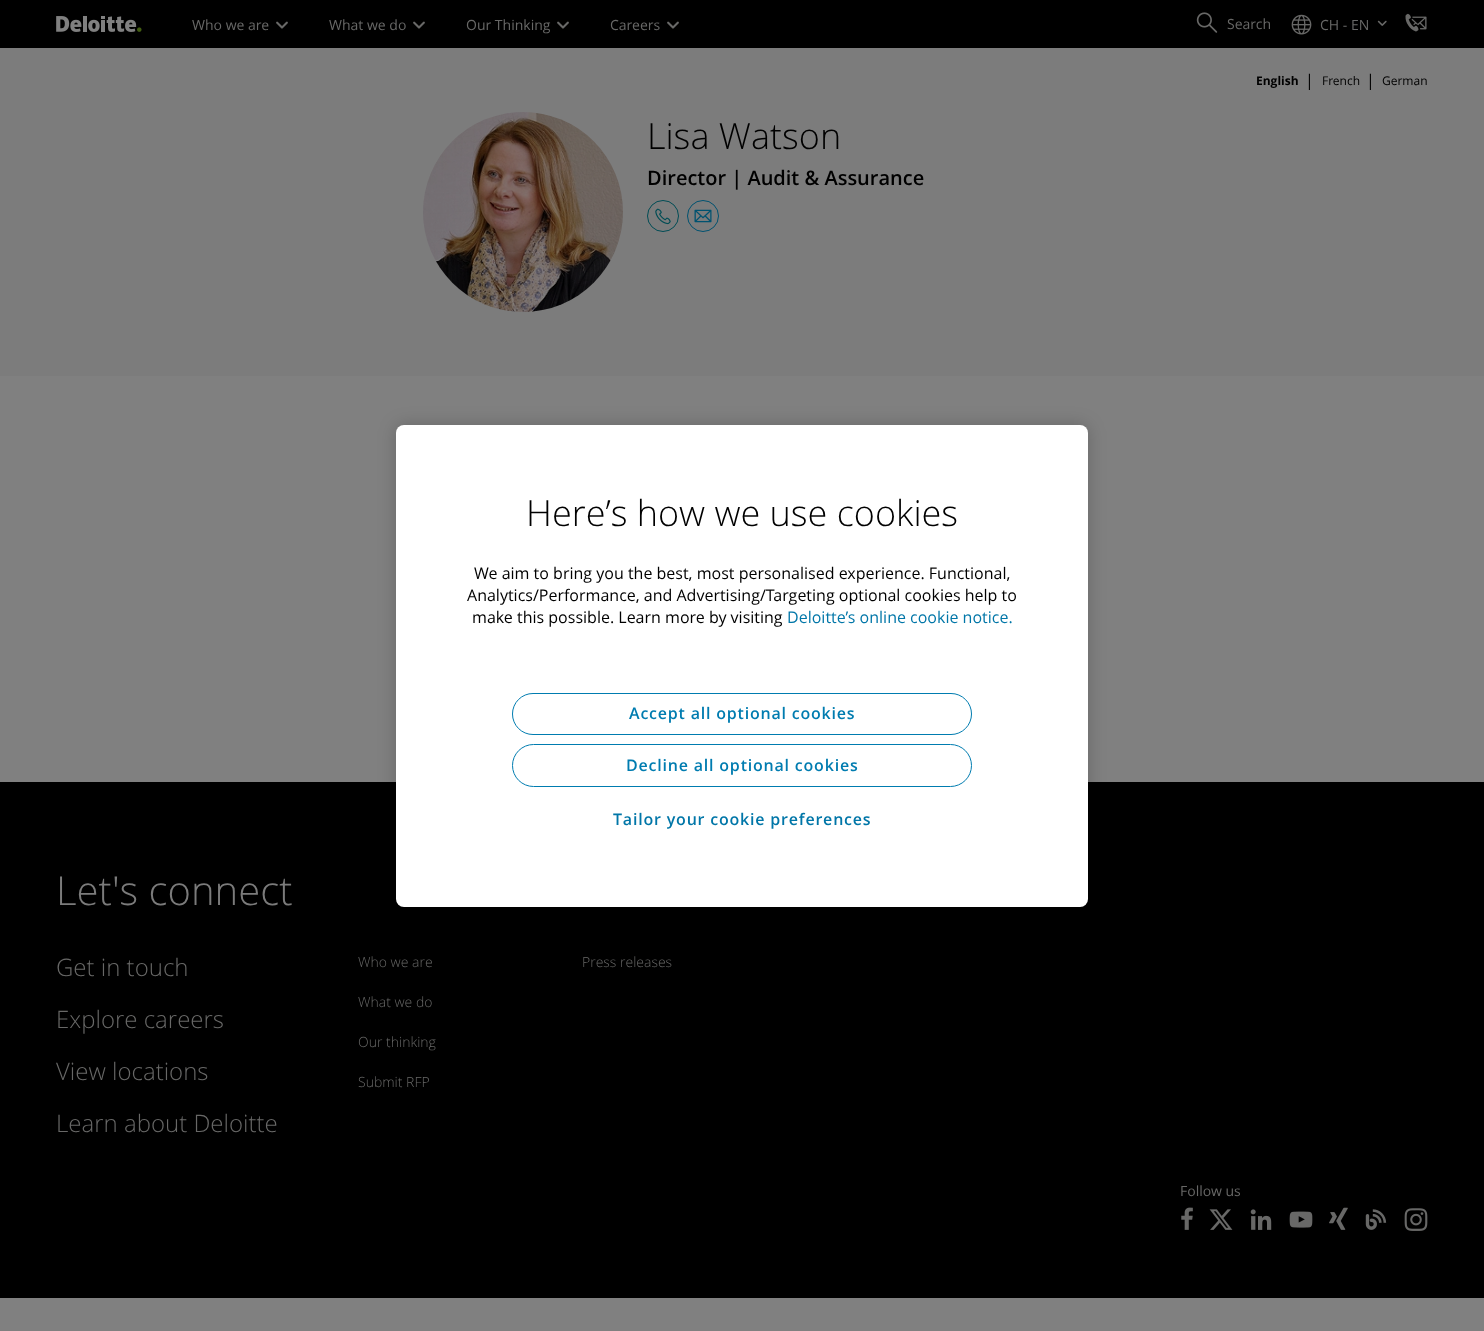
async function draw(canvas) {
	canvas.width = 1484;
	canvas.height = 1331;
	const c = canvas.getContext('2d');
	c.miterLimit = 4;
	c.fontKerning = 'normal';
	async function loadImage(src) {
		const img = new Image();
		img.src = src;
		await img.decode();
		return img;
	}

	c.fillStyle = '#808080';
	c.fillRect(0, 0, 1484, 1331);
	c.fillStyle = '#000';
	c.fillRect(0, 0, 1484, 48);
	c.drawImage(await loadImage('img1.png'), 56, 16, 86, 16);
	c.font = '14px Open Sans';
	c.fillStyle = '#686867';
	c.fillText('Who we are', 192, 30);
	c.drawImage(await loadImage('img2.png'), 276, 21, 12, 8);
	c.fillText('What we do', 329, 30);
	c.drawImage(await loadImage('img2.png'), 413, 21, 12, 8);
	c.fillText('Our Thinking', 466, 30);
	c.drawImage(await loadImage('img2.png'), 557, 21, 12, 8);
	c.fillText('Careers', 610, 30);
	c.drawImage(await loadImage('img2.png'), 667, 21, 12, 8);
	c.drawImage(await loadImage('img3.png'), 1196, 12, 22, 21);
	c.fillText('Search', 1227, 29);
	c.drawImage(await loadImage('img4.png'), 1291, 14, 21, 21);
	c.fillText('CH - EN', 1320, 30);
	c.drawImage(await loadImage('img5.png'), 1377, 20, 10, 6);
	c.drawImage(await loadImage('img6.png'), 1405, 13, 22, 19);
	c.fillStyle = '#7c7c7c';
	c.fillRect(0, 48, 1484, 328);
	c.font = 'bold 12px Open Sans';
	c.fillStyle = '#000';
	c.fillText('English', 1256, 85);
	c.font = '16px Open Sans';
	c.fillText('|', 1305, 86);
	c.font = '12px Open Sans';
	c.fillText('French', 1322, 85);
	c.font = '16px Open Sans';
	c.fillText('|', 1366, 86);
	c.font = '12px Open Sans';
	c.fillText('German', 1382, 85);
	c.drawImage(await loadImage('img7.png'), 423, 112, 200, 200);
	c.font = '300 36px Open Sans';
	c.fillText('Lisa Watson', 647, 149);
	c.font = '600 20px Open Sans';
	c.fillText('Director | Audit & Assurance', 647, 185);
	c.beginPath();
	c.arc(663, 216, 15.5, 0, 2 * Math.PI);
	c.strokeStyle = '#004c55';
	c.stroke();
	c.drawImage(await loadImage('img8.png'), 655, 208, 16, 17);
	c.beginPath();
	c.arc(703, 216, 15.5, 0, 2 * Math.PI);
	c.strokeStyle = '#005270';
	c.stroke();
	c.drawImage(await loadImage('img9.png'), 694, 209, 18, 14);
	c.fillRect(0, 782, 1484, 516);
	c.font = '300 40px Open Sans';
	c.fillStyle = '#7b7b7b';
	c.fillText('Let\'s connect', 56, 905);
	c.font = '300 24px Open Sans';
	c.fillStyle = '#686867';
	for (const [text, x, y] of [
		['Get in touch', 56, 976],
		['Explore careers', 56, 1028],
		['View locations', 56, 1080],
		['Learn about Deloitte', 56, 1132],
	]) {
		c.fillText(text, x, y);
	}
	c.font = '300 14px Open Sans';
	for (const [text, x, y] of [
		['Who we are', 358, 967],
		['What we do', 358, 1007],
		['Our thinking', 358, 1047],
		['Submit RFP', 358, 1087],
		['Press releases', 582, 967],
	]) {
		c.fillText(text, x, y);
	}
	c.font = '14px Open Sans';
	c.fillText('Follow us', 1180, 1196);
	c.drawImage(await loadImage('img10.png'), 1181, 1207, 12, 23);
	c.drawImage(await loadImage('img11.png'), 1209, 1209, 24, 21);
	c.drawImage(await loadImage('img12.png'), 1250, 1209, 22, 21);
	c.drawImage(await loadImage('img13.png'), 1289, 1211, 24, 17);
	c.drawImage(await loadImage('img14.png'), 1329, 1207, 19, 23);
	c.drawImage(await loadImage('img15.png'), 1365, 1209, 22, 21);
	c.drawImage(await loadImage('img16.png'), 1404, 1208, 24, 23);
	c.fillStyle = '#00000033';
	c.filter = 'blur(9px)';
	c.beginPath();
	c.roundRect(396, 425, 692, 482, 8);
	c.fill();
	c.filter = 'none';
	c.fillStyle = '#fff';
	c.beginPath();
	c.roundRect(396, 425, 692, 482, 8);
	c.fill();
	c.font = '300 36px Open Sans';
	c.fillStyle = '#000';
	c.fillText('Here’s how we use cookies', 526, 526);
	c.font = '16px Open Sans';
	for (const [text, x, y] of [
		['We aim to bring you the best, most personalised experience. Functional,', 474, 579],
		['Analytics/Performance, and Advertising/Targeting optional cookies help to', 467, 601],
		['make this possible. Learn more by visiting', 472, 623],
	]) {
		c.fillText(text, x, y);
	}
	c.fillStyle = '#0076a8';
	c.fillText('Deloitte’s online cookie notice.', 787, 623);
	c.beginPath();
	c.roundRect(512.5, 693.5, 459, 41, 20.5);
	c.strokeStyle = '#007cb0';
	c.stroke();
	c.letterSpacing = '0.8px';
	c.font = '600 16px Open Sans';
	c.fillStyle = '#007cb0';
	c.fillText('Accept all optional cookies', 629, 719);
	c.beginPath();
	c.roundRect(512.5, 744.5, 459, 42, 21);
	c.stroke();
	c.fillText('Decline all optional cookies', 626, 771);
	c.fillStyle = '#0076a8';
	c.fillText('Tailor your cookie preferences', 613, 825);
}

draw(document.querySelector('canvas'));
